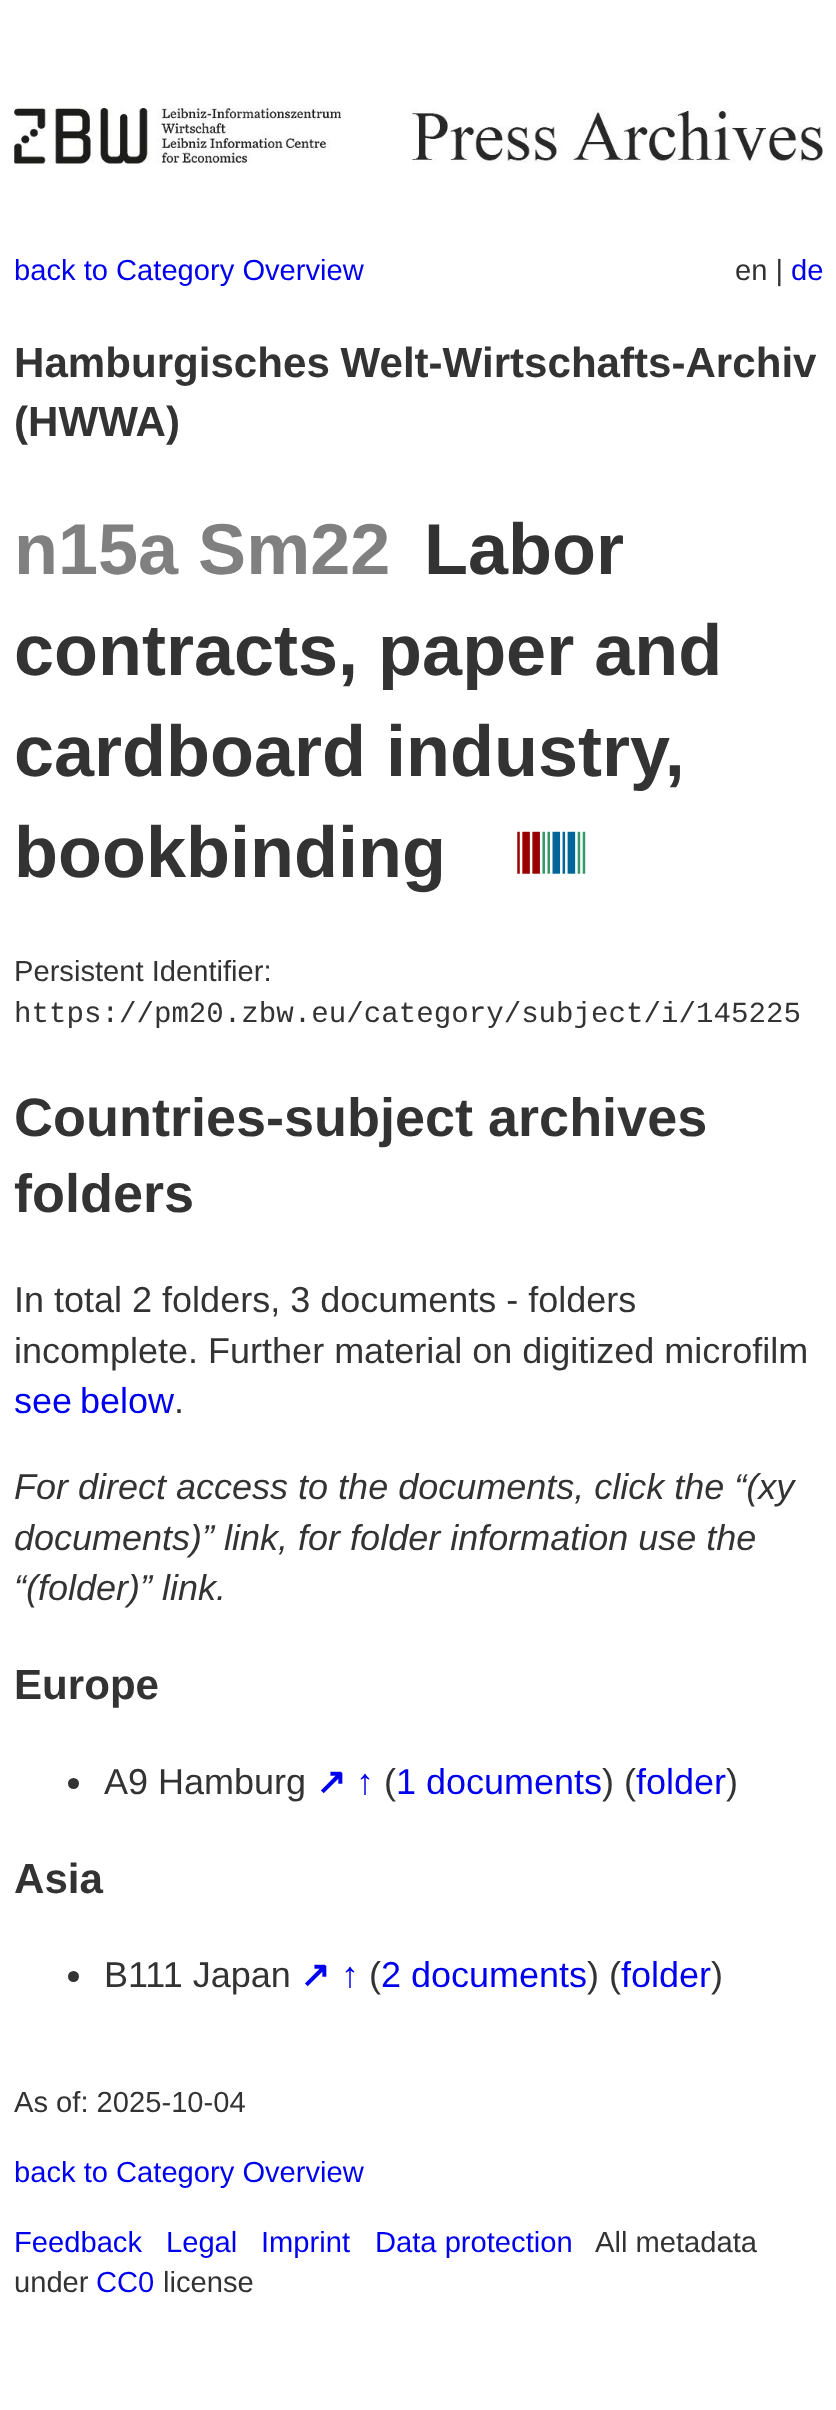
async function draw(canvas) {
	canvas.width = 836;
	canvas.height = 2410;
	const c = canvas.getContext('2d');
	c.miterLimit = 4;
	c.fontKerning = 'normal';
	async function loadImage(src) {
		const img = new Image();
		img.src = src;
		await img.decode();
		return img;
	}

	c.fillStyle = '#fff';
	c.fillRect(0, 0, 836, 2410);
	c.drawImage(await loadImage('img1.png'), 13, 108, 810, 56);
	c.font = '29.15px Liberation Sans';
	c.fillStyle = '#00e';
	c.fillText('back to Category Overview', 14, 280);
	c.fillStyle = '#333';
	c.fillText('en |', 735, 280);
	c.fillStyle = '#00e';
	c.fillText('de', 791, 280);
	c.wordSpacing = '-1px';
	c.font = 'bold 42.1px Liberation Sans';
	c.fillStyle = '#333';
	c.fillText('Hamburgisches Welt-Wirtschafts-Archiv', 14, 377);
	c.wordSpacing = '0px';
	c.fillText('(HWWA)', 14, 436);
	c.font = 'bold 72px Liberation Sans';
	c.fillStyle = '#808080';
	c.fillText('n15a Sm22', 14, 574);
	c.fillStyle = '#333';
	for (const [text, x, y] of [
		['Labor', 424, 574],
		['contracts, paper and', 14, 675],
		['cardboard industry,', 14, 776],
		['bookbinding', 14, 877],
	]) {
		c.fillText(text, x, y);
	}
	c.drawImage(await loadImage('img2.png'), 517, 831, 69, 43);
	c.font = '29.15px Liberation Sans';
	c.fillText('Persistent Identifier:', 14, 981);
	c.font = '29.15px Liberation Mono';
	c.fillText('https://pm20.zbw.eu/category/subject/i/145225', 14, 1022);
	c.font = 'bold 54px Liberation Sans';
	c.fillText('Countries-subject archives', 14, 1136);
	c.fillText('folders', 14, 1212);
	c.font = '36px Liberation Sans';
	c.fillText('In total 2 folders, 3 documents - folders', 14, 1312);
	c.fillText('incomplete. Further material on digitized microfilm', 14, 1363);
	c.wordSpacing = '-2px';
	c.fillStyle = '#00e';
	c.fillText('see below', 14, 1413);
	c.wordSpacing = '0px';
	c.fillStyle = '#333';
	c.fillText('.', 174, 1413);
	c.font = 'italic 36px Liberation Sans';
	for (const [text, x, y] of [
		['For direct access to the documents, click the “(xy', 14, 1499],
		['documents)” link, for folder information use the', 14, 1550],
		['“(folder)” link.', 14, 1600],
	]) {
		c.fillText(text, x, y);
	}
	c.font = 'bold 42.1px Liberation Sans';
	c.fillText('Europe', 14, 1699);
	c.beginPath();
	c.arc(73.5, 1783.5, 5.5, 0, 2 * Math.PI);
	c.fill();
	c.font = '36px Liberation Sans';
	c.fillText('A9 Hamburg', 104, 1794);
	c.font = 'bold 36px DejaVu Sans';
	c.fillStyle = '#00e';
	c.fillText('↗', 316, 1794);
	c.font = 'bold 36px Liberation Sans';
	c.fillText('↑', 356, 1794);
	c.font = '36px Liberation Sans';
	c.fillStyle = '#333';
	c.fillText('(', 384, 1794);
	c.fillStyle = '#00e';
	c.fillText('1 documents', 396, 1794);
	c.fillStyle = '#333';
	c.fillText(') (', 602, 1794);
	c.fillStyle = '#00e';
	c.fillText('folder', 636, 1794);
	c.fillStyle = '#333';
	c.fillText(')', 726, 1794);
	c.font = 'bold 42.1px Liberation Sans';
	c.fillText('Asia', 14, 1893);
	c.beginPath();
	c.arc(73.5, 1976.5, 5.5, 0, 2 * Math.PI);
	c.fill();
	c.font = '36px Liberation Sans';
	c.fillText('B111 Japan', 104, 1987);
	c.font = 'bold 36px DejaVu Sans';
	c.fillStyle = '#00e';
	c.fillText('↗', 300, 1987);
	c.font = 'bold 36px Liberation Sans';
	c.fillText('↑', 341, 1987);
	c.font = '36px Liberation Sans';
	c.fillStyle = '#333';
	c.fillText('(', 369, 1987);
	c.fillStyle = '#00e';
	c.fillText('2 documents', 381, 1987);
	c.fillStyle = '#333';
	c.fillText(') (', 587, 1987);
	c.fillStyle = '#00e';
	c.fillText('folder', 621, 1987);
	c.fillStyle = '#333';
	c.fillText(')', 711, 1987);
	c.font = '29.15px Liberation Sans';
	c.fillText('As of: 2025-10-04', 14, 2112);
	c.fillStyle = '#00e';
	for (const [text, x, y] of [
		['back to Category Overview', 14, 2182],
		['Feedback', 14, 2252],
		['Legal', 166, 2252],
		['Imprint', 261, 2252],
		['Data protection', 375, 2252],
	]) {
		c.fillText(text, x, y);
	}
	c.fillStyle = '#333';
	c.fillText('All metadata', 595, 2252);
	c.fillText('under', 14, 2292);
	c.fillStyle = '#00e';
	c.fillText('CC0', 96, 2292);
	c.fillStyle = '#333';
	c.fillText('license', 163, 2292);
}

draw(document.querySelector('canvas'));
